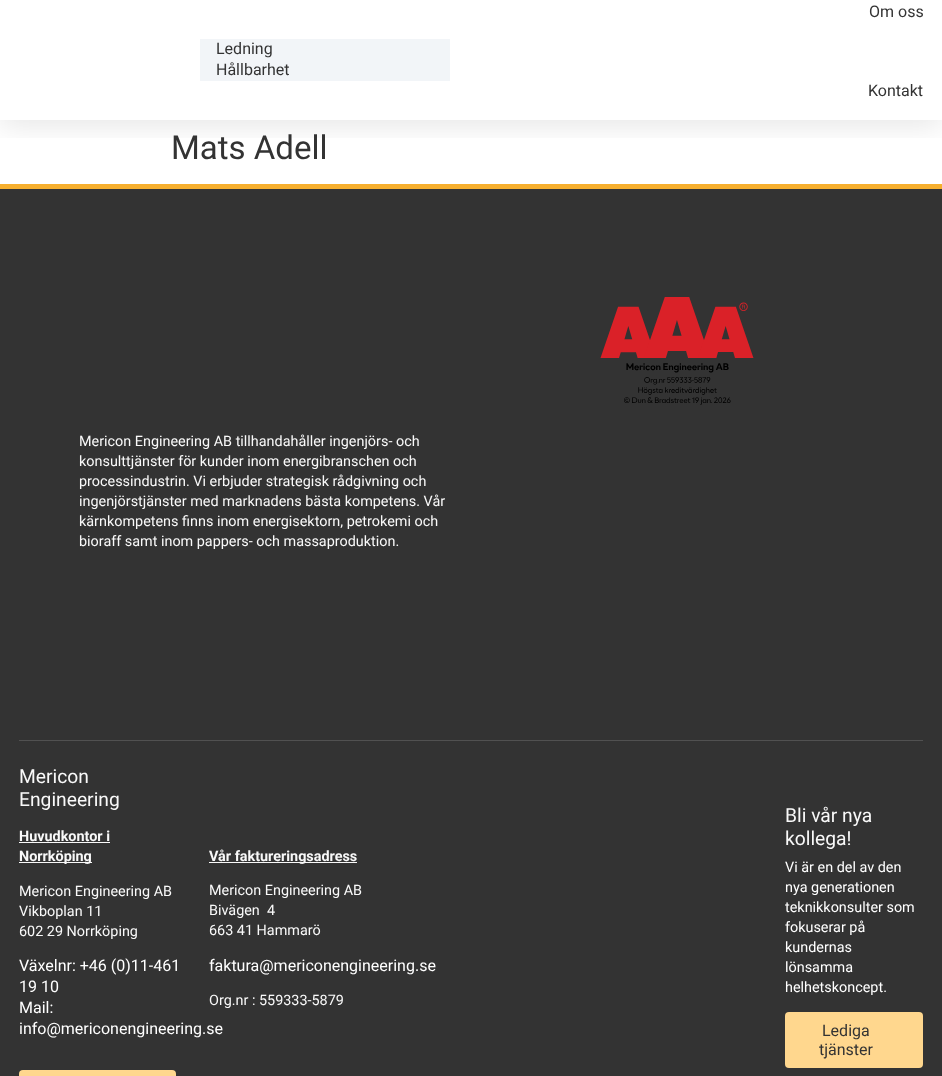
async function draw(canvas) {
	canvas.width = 942;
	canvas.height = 1076;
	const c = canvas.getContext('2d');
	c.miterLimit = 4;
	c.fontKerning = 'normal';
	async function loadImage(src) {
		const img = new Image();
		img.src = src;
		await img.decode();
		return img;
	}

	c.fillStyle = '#fff';
	c.fillRect(0, 0, 942, 1076);
	c.save();
	c.beginPath();
	c.rect(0, 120, 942, 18);
	c.clip();
	c.fillStyle = '#0000001a';
	c.filter = 'blur(15px)';
	c.beginPath();
	c.rect(0, -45, 942, 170);
	c.fill();
	c.filter = 'none';
	c.restore();
	c.font = '16px Roboto';
	c.fillStyle = '#333';
	c.fillText('Om oss', 869, 17);
	c.fillStyle = '#f2f5f8';
	c.fillRect(200, 39, 250, 42);
	c.fillStyle = '#333';
	for (const [text, x, y] of [
		['Ledning', 216, 54],
		['Hållbarhet', 216, 75],
		['Kontakt', 868, 96],
	]) {
		c.fillText(text, x, y);
	}
	c.font = '33px Roboto';
	c.fillText('Mats Adell', 171, 159);
	for (const [x, y, w, h, color] of [
		[0, 189, 942, 887, '#333'],
		[0, 184, 942, 5, '#f6af2e'],
		[19, 740, 904, 1, '#515151'],
	]) {
		c.fillStyle = color;
		c.fillRect(x, y, w, h);
	}
	c.drawImage(await loadImage('img1.png'), 600, 297, 154, 108);
	c.font = '14.4px Roboto';
	c.fillStyle = '#f9f9f9';
	for (const [text, x, y] of [
		['Mericon Engineering AB tillhandahåller ingenjörs- och', 79, 446],
		['konsulttjänster för kunder inom energibranschen och', 79, 466],
		['processindustrin. Vi erbjuder strategisk rådgivning och', 79, 486],
		['ingenjörstjänster med marknadens bästa kompetens. Vår', 79, 506],
		['kärnkompetens finns inom energisektorn, petrokemi och', 79, 526],
		['bioraff samt inom pappers- och massaproduktion.', 79, 546],
	]) {
		c.fillText(text, x, y);
	}
	c.font = '19.25px Roboto';
	c.fillText('Mericon', 19, 783);
	c.fillText('Engineering', 19, 806);
	c.font = 'bold 14.4px Roboto';
	c.fillText('Huvudkontor i', 19, 841);
	c.fillRect(19, 842, 91, 1);
	c.fillRect(19, 862, 73, 1);
	c.fillText('Norrköping', 19, 861);
	c.font = '14.4px Roboto';
	for (const [text, x, y] of [
		['Mericon Engineering AB', 19, 896],
		['Vikboplan 11', 19, 916],
		['602 29 Norrköping', 19, 936],
	]) {
		c.fillText(text, x, y);
	}
	c.font = '16px Roboto';
	c.fillStyle = '#fff';
	for (const [text, x, y] of [
		['Växelnr: +46 (0)11-461', 19, 971],
		['19 10', 19, 992],
		['Mail:', 19, 1013],
		['info@mericonengineering.se', 19, 1034],
	]) {
		c.fillText(text, x, y);
	}
	c.fillStyle = '#ffd78e';
	c.beginPath();
	c.roundRect(19, 1070, 157, 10, 4);
	c.fill();
	c.fillStyle = '#f9f9f9';
	c.fillRect(209, 862, 148, 1);
	c.font = 'bold 14.4px Roboto';
	c.fillText('Vår faktureringsadress', 209, 861);
	c.font = '14.4px Roboto';
	for (const [text, x, y] of [
		['Mericon Engineering AB', 209, 895],
		['Bivägen  4', 209, 915],
		['663 41 Hammarö', 209, 935],
	]) {
		c.fillText(text, x, y);
	}
	c.font = '16px Roboto';
	c.fillStyle = '#fff';
	c.fillText('faktura@mericonengineering.se', 209, 971);
	c.font = '14.4px Roboto';
	c.fillStyle = '#f9f9f9';
	c.fillText('Org.nr : 559333-5879', 209, 1005);
	c.font = '19.25px Roboto';
	c.fillText('Bli vår nya', 785, 822);
	c.fillText('kollega!', 785, 845);
	c.font = '14.4px Roboto';
	c.fillStyle = '#fff';
	for (const [text, x, y] of [
		['Vi är en del av den', 785, 872],
		['nya generationen', 785, 892],
		['teknikkonsulter som', 785, 912],
		['fokuserar på', 785, 932],
		['kundernas', 785, 952],
		['lönsamma', 785, 972],
		['helhetskoncept.', 785, 992],
	]) {
		c.fillText(text, x, y);
	}
	c.fillStyle = '#ffd78e';
	c.beginPath();
	c.roundRect(785, 1012, 138, 56, 4);
	c.fill();
	c.font = '16px Roboto';
	c.fillStyle = '#333';
	c.fillText('Lediga', 822, 1036);
	c.fillText('tjänster', 819, 1055);
}

draw(document.querySelector('canvas'));
